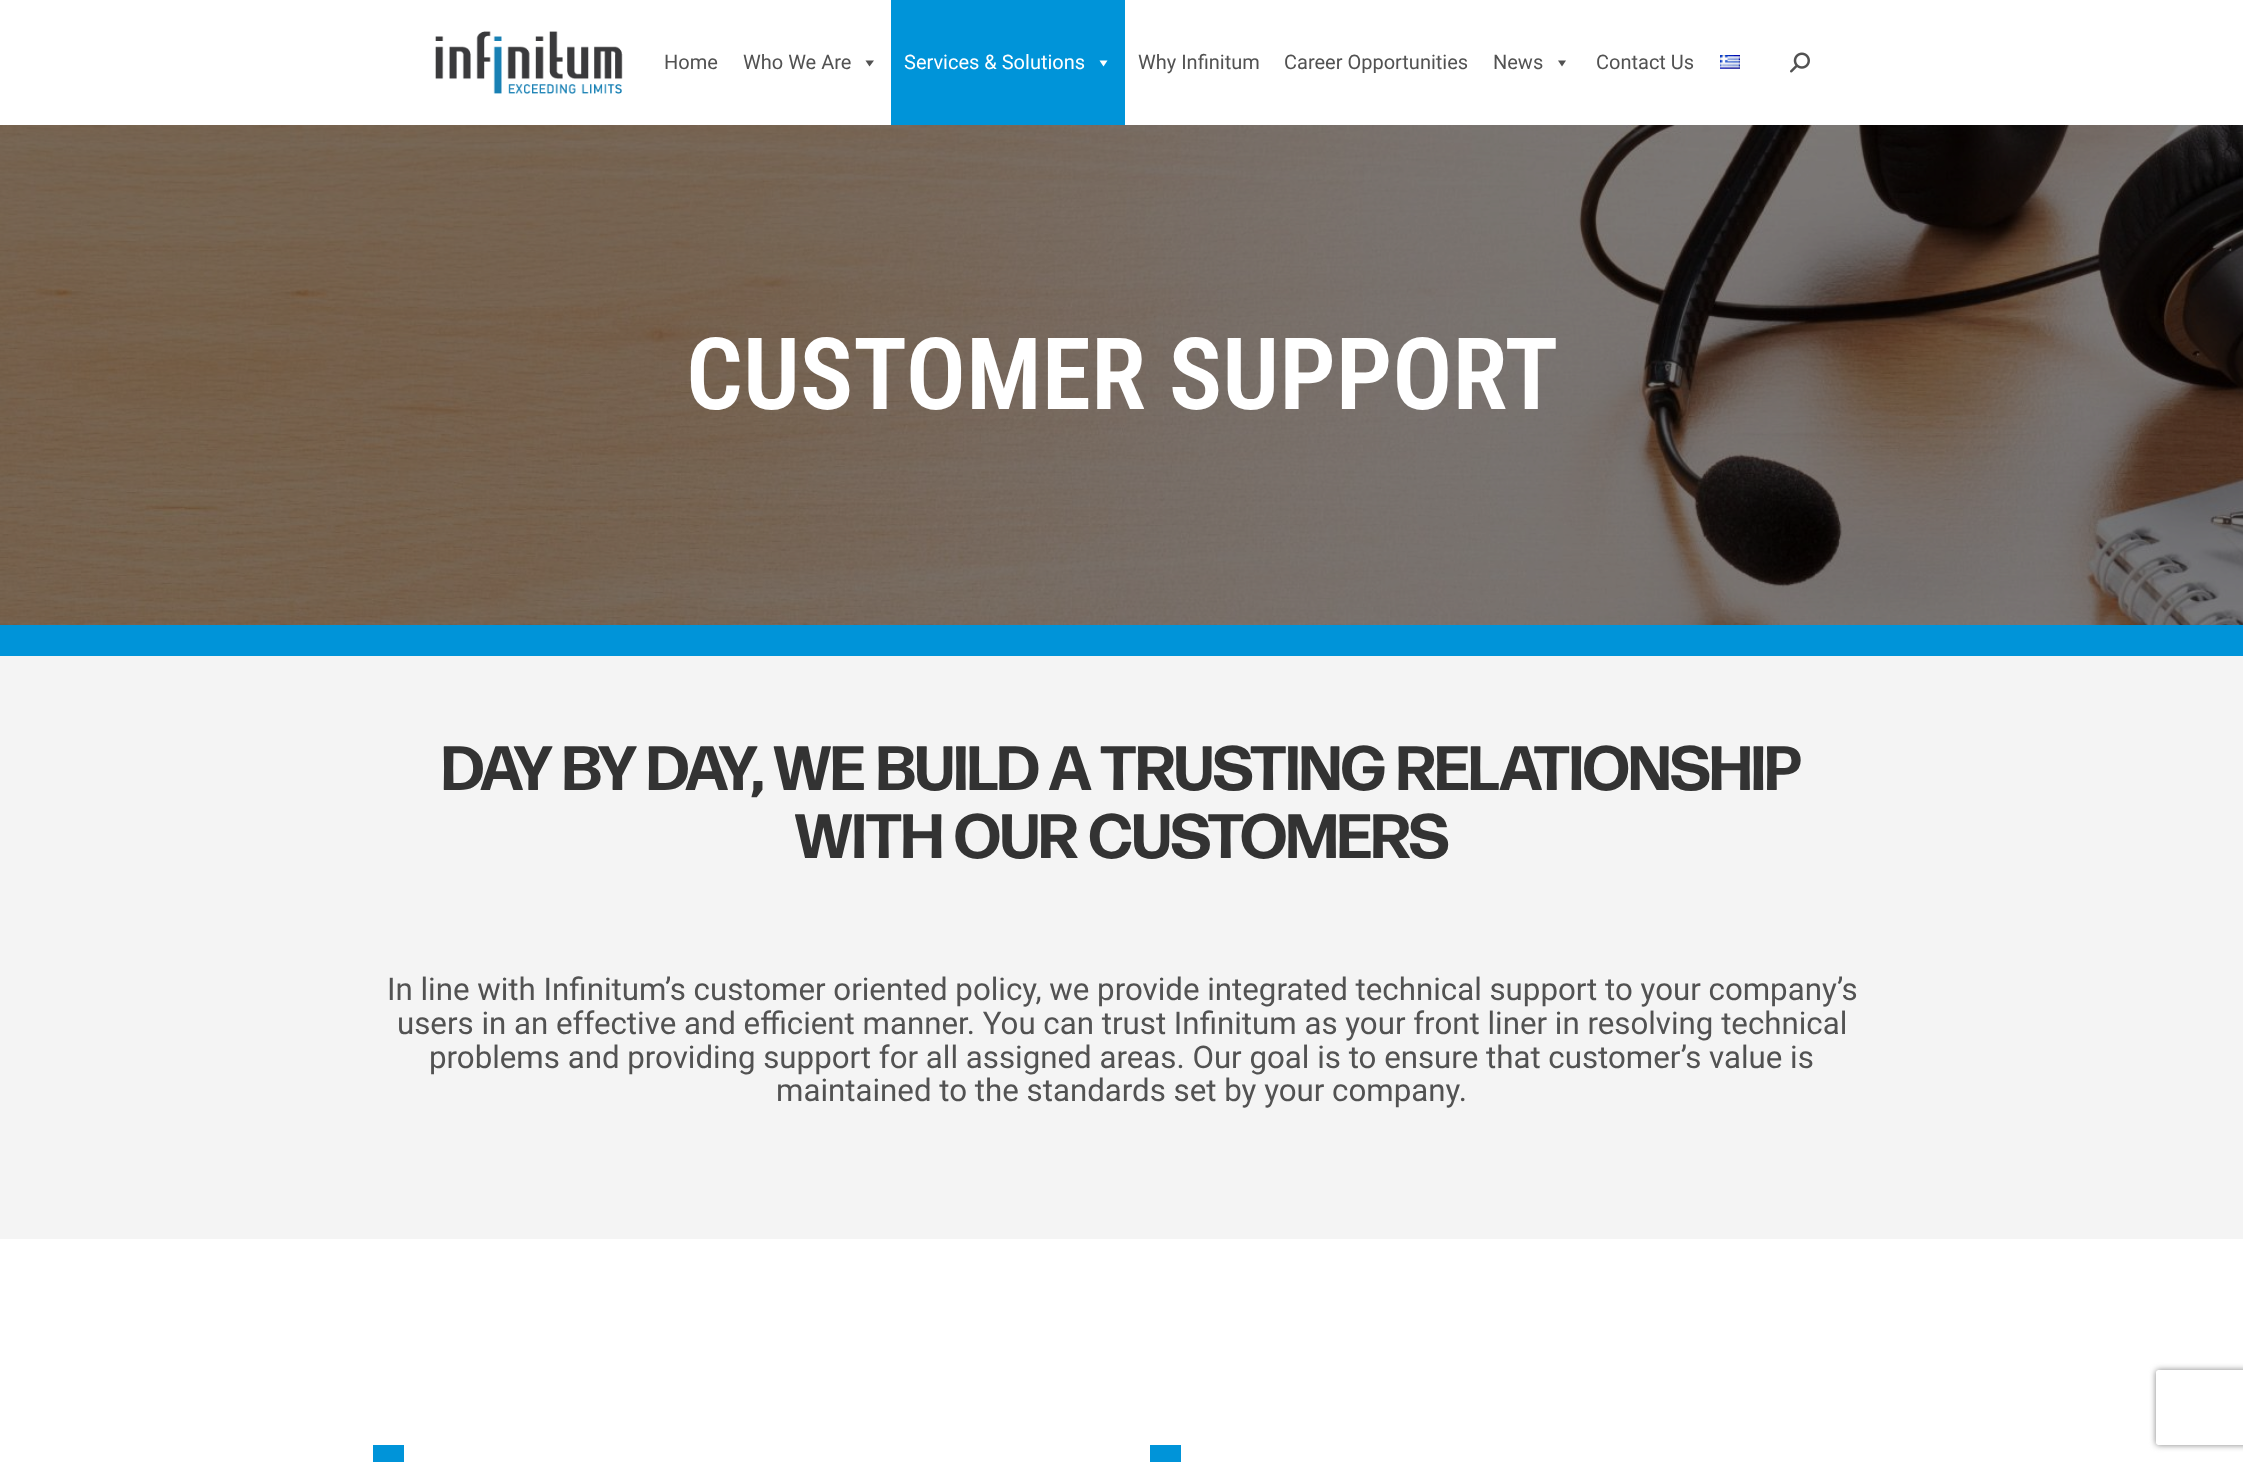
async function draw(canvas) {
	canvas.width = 2243;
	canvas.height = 1462;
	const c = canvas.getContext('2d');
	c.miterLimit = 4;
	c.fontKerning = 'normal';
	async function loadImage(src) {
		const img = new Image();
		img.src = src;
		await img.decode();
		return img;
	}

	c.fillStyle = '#fff';
	c.fillRect(0, 0, 2243, 1462);
	c.drawImage(await loadImage('img1.png'), 435, 31, 188, 63);
	c.font = '20px Roboto';
	c.fillStyle = '#525252';
	c.fillText('Home', 664, 69);
	c.fillText('Who We Are', 743, 69);
	c.beginPath();
	c.moveTo(874, 60.5);
	c.lineTo(869.5, 66.5);
	c.lineTo(865.5, 60.5);
	c.closePath();
	c.fill();
	c.fillStyle = '#0094d9';
	c.fillRect(891, 0, 234, 125);
	c.fillStyle = '#fff';
	c.fillText('Services & Solutions', 904, 69);
	c.beginPath();
	c.moveTo(1107.5, 60.5);
	c.lineTo(1103.5, 66.5);
	c.lineTo(1099.5, 60.5);
	c.closePath();
	c.fill();
	c.fillStyle = '#525252';
	for (const [text, x, y] of [
		['Why Infinitum', 1138, 69],
		['Career Opportunities', 1284, 69],
		['News', 1493, 69],
	]) {
		c.fillText(text, x, y);
	}
	c.beginPath();
	c.moveTo(1566, 60.5);
	c.lineTo(1562, 66.5);
	c.lineTo(1558, 60.5);
	c.closePath();
	c.fill();
	c.fillText('Contact Us', 1596, 69);
	c.drawImage(await loadImage('img2.png'), 1720, 55, 20, 14);
	c.drawImage(await loadImage('img3.png'), 1790, 52, 20, 21);
	c.drawImage(await loadImage('img4.png'), 0, 125, 2243, 500);
	c.fillStyle = '#0094d9';
	c.fillRect(0, 625, 2243, 31);
	c.font = '600 100px Roboto Condensed';
	c.fillStyle = '#fff';
	c.fillText('CUSTOMER SUPPORT', 686, 409);
	c.fillStyle = '#f4f4f4';
	c.fillRect(0, 656, 2243, 583);
	c.font = 'bold 62.5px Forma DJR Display';
	c.fillStyle = '#333';
	c.fillText('DAY BY DAY, WE BUILD A TRUSTING RELATIONSHIP', 442, 790);
	c.fillText('WITH OUR CUSTOMERS', 795, 858);
	c.font = '31.25px Roboto';
	c.fillStyle = '#525252';
	for (const [text, x, y] of [
		['In line with Infinitum’s customer oriented policy, we provide integrated technical support to your company’s', 387, 1000],
		['users in an effective and efficient manner. You can trust Infinitum as your front liner in resolving technical', 397, 1034],
		['problems and providing support for all assigned areas. Our goal is to ensure that customer’s value is', 429, 1068],
		['maintained to the standards set by your company.', 776, 1101],
	]) {
		c.fillText(text, x, y);
	}
	c.fillStyle = '#0094d9';
	c.fillRect(373, 1445, 31, 17);
	c.fillRect(1150, 1445, 31, 17);
	c.save();
	c.beginPath();
	c.moveTo(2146, 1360);
	c.lineTo(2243, 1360);
	c.lineTo(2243, 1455);
	c.lineTo(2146, 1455);
	c.closePath();
	c.moveTo(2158.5, 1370);
	c.lineTo(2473.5, 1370);
	c.bezierCurveTo(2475, 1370, 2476, 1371, 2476, 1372.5);
	c.lineTo(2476, 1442.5);
	c.bezierCurveTo(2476, 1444, 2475, 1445, 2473.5, 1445);
	c.lineTo(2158.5, 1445);
	c.bezierCurveTo(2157, 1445, 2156, 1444, 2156, 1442.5);
	c.lineTo(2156, 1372.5);
	c.bezierCurveTo(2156, 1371, 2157, 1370, 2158.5, 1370);
	c.closePath();
	c.clip('evenodd');
	c.fillStyle = '#808080';
	c.filter = 'blur(3px)';
	c.beginPath();
	c.roundRect(2156, 1370, 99, 75, 2.5);
	c.fill();
	c.filter = 'none';
	c.restore();
}

draw(document.querySelector('canvas'));
